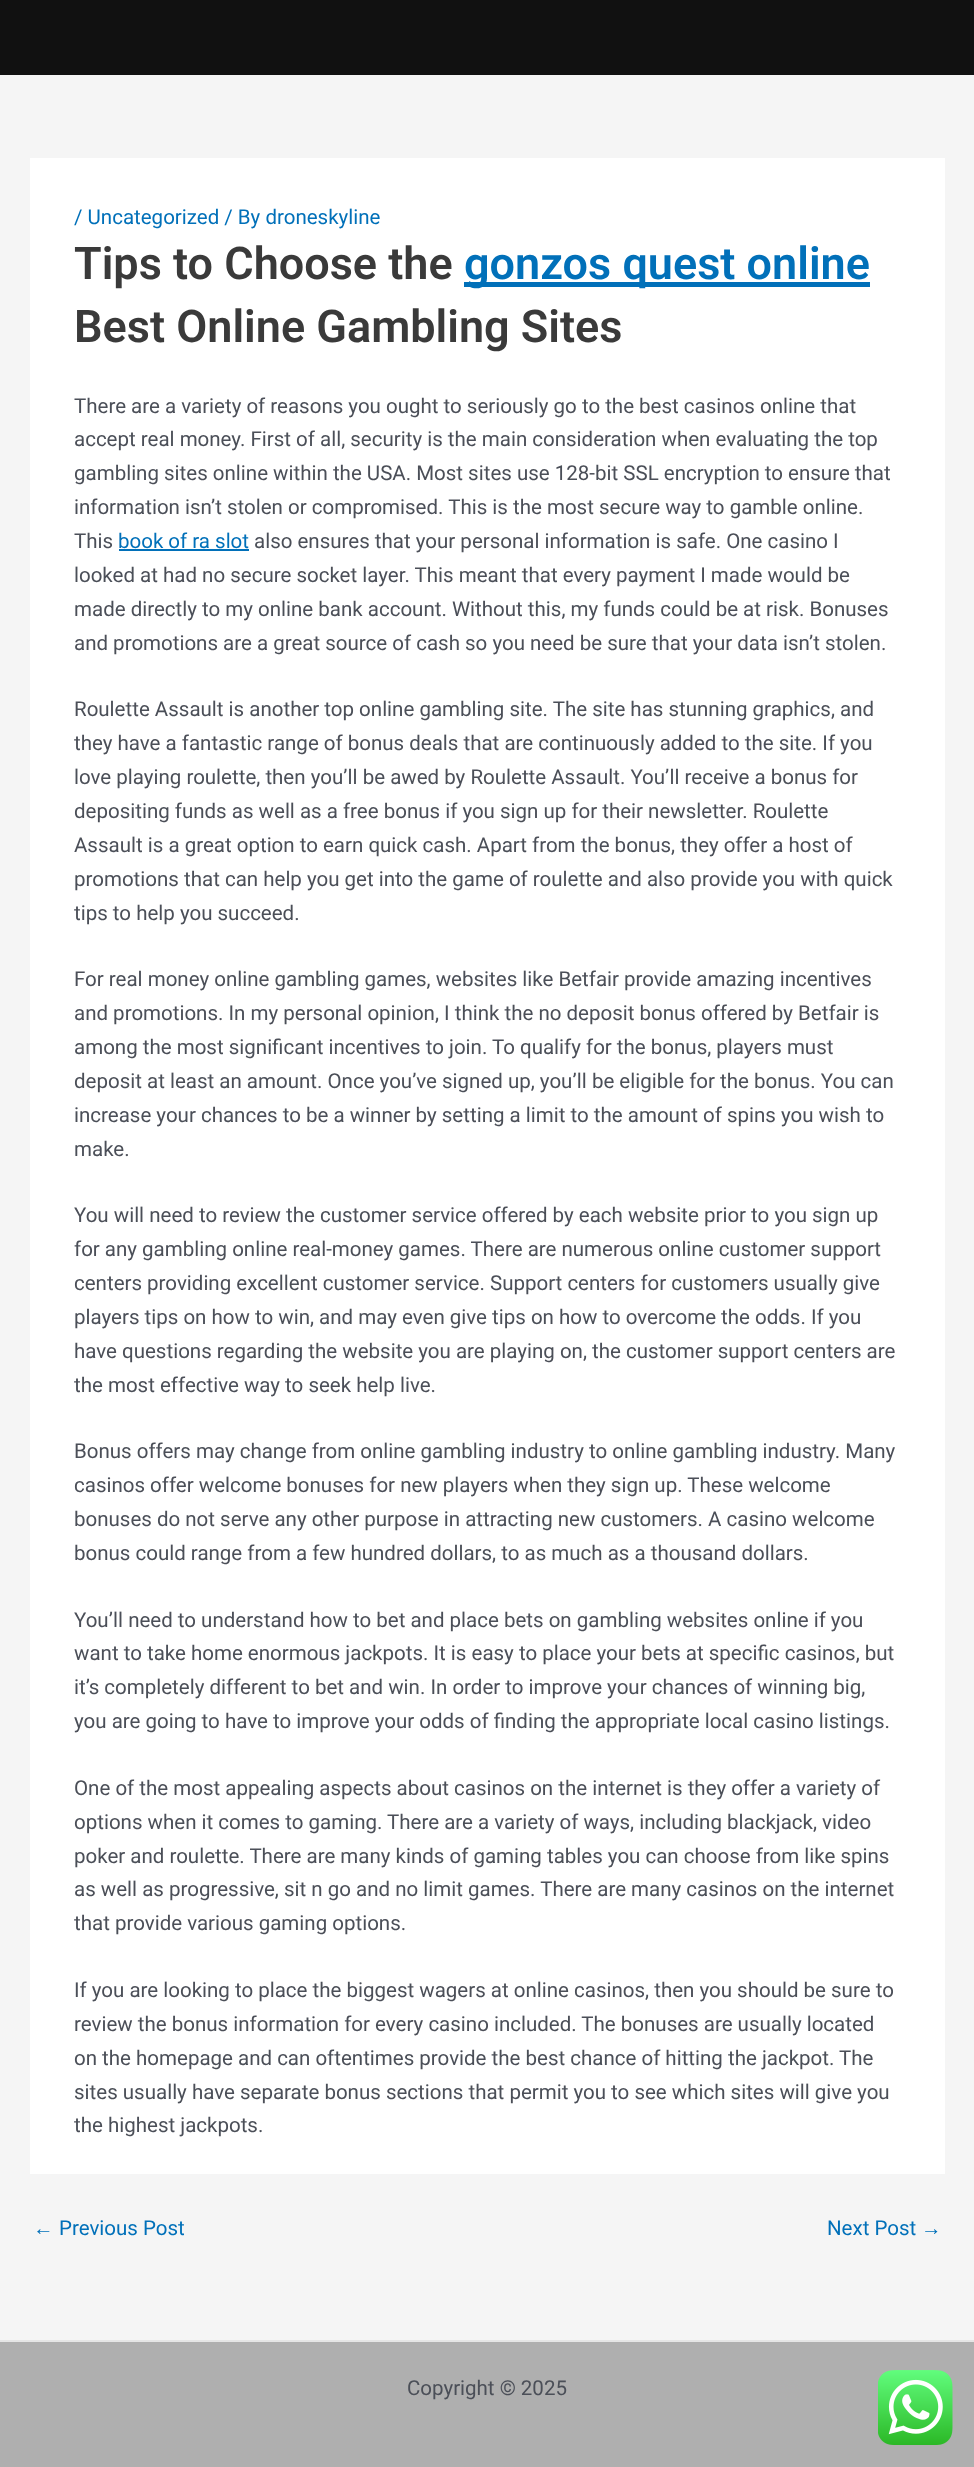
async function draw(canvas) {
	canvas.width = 974;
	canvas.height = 2467;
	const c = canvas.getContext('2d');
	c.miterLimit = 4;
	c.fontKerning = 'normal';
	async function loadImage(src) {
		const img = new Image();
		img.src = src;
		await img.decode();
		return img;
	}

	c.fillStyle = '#f5f5f5';
	c.fillRect(0, 0, 974, 2467);
	c.fillStyle = '#111';
	c.fillRect(0, 0, 974, 75);
	c.fillStyle = '#fff';
	c.fillRect(30, 158, 915, 2016);
	c.font = '20.5px Roboto';
	c.fillStyle = '#0170b9';
	c.fillText('/ Uncategorized / By droneskyline', 74, 224);
	c.font = '600 45px Roboto';
	c.fillStyle = '#3a3a3a';
	c.fillText('Tips to Choose the', 74, 279);
	c.fillStyle = '#0170b9';
	c.fillRect(464, 282, 406, 5);
	c.fillText('gonzos quest online', 464, 279);
	c.fillStyle = '#3a3a3a';
	c.fillText('Best Online Gambling Sites', 74, 342);
	c.font = '20.5px Roboto';
	c.fillStyle = '#4b4f58';
	for (const [text, x, y] of [
		['There are a variety of reasons you ought to seriously go to the best casinos online that', 74, 413],
		['accept real money. First of all, security is the main consideration when evaluating the top', 74, 446],
		['gambling sites online within the USA. Most sites use 128-bit SSL encryption to ensure that', 74, 480],
		['information isn’t stolen or compromised. This is the most secure way to gamble online.', 74, 514],
		['This', 74, 548],
	]) {
		c.fillText(text, x, y);
	}
	c.fillStyle = '#0170b9';
	c.fillText('book of ra slot', 118, 548);
	c.fillRect(119, 549, 130, 2);
	c.fillStyle = '#4b4f58';
	for (const [text, x, y] of [
		['also ensures that your personal information is safe. One casino I', 254, 548],
		['looked at had no secure socket layer. This meant that every payment I made would be', 74, 582],
		['made directly to my online bank account. Without this, my funds could be at risk. Bonuses', 74, 616],
		['and promotions are a great source of cash so you need be sure that your data isn’t stolen.', 74, 650],
		['Roulette Assault is another top online gambling site. The site has stunning graphics, and', 74, 716],
		['they have a fantastic range of bonus deals that are continuously added to the site. If you', 74, 750],
		['love playing roulette, then you’ll be awed by Roulette Assault. You’ll receive a bonus for', 74, 784],
		['depositing funds as well as a free bonus if you sign up for their newsletter. Roulette', 74, 818],
		['Assault is a great option to earn quick cash. Apart from the bonus, they offer a host of', 74, 852],
		['promotions that can help you get into the game of roulette and also provide you with quick', 74, 886],
		['tips to help you succeed.', 74, 920],
		['For real money online gambling games, websites like Betfair provide amazing incentives', 74, 986],
		['and promotions. In my personal opinion, I think the no deposit bonus offered by Betfair is', 74, 1020],
		['among the most significant incentives to join. To qualify for the bonus, players must', 74, 1054],
		['deposit at least an amount. Once you’ve signed up, you’ll be eligible for the bonus. You can', 74, 1088],
		['increase your chances to be a winner by setting a limit to the amount of spins you wish to', 74, 1122],
		['make.', 74, 1156],
		['You will need to review the customer service offered by each website prior to you sign up', 74, 1222],
		['for any gambling online real-money games. There are numerous online customer support', 74, 1256],
		['centers providing excellent customer service. Support centers for customers usually give', 74, 1290],
		['players tips on how to win, and may even give tips on how to overcome the odds. If you', 74, 1324],
		['have questions regarding the website you are playing on, the customer support centers are', 74, 1358],
		['the most effective way to seek help live.', 74, 1392],
		['Bonus offers may change from online gambling industry to online gambling industry. Many', 74, 1458],
		['casinos offer welcome bonuses for new players when they sign up. These welcome', 74, 1492],
		['bonuses do not serve any other purpose in attracting new customers. A casino welcome', 74, 1526],
		['bonus could range from a few hundred dollars, to as much as a thousand dollars.', 74, 1560],
		['You’ll need to understand how to bet and place bets on gambling websites online if you', 74, 1627],
		['want to take home enormous jackpots. It is easy to place your bets at specific casinos, but', 74, 1660],
		['it’s completely different to bet and win. In order to improve your chances of winning big,', 74, 1694],
		['you are going to have to improve your odds of finding the appropriate local casino listings.', 74, 1728],
		['One of the most appealing aspects about casinos on the internet is they offer a variety of', 74, 1795],
		['options when it comes to gaming. There are a variety of ways, including blackjack, video', 74, 1829],
		['poker and roulette. There are many kinds of gaming tables you can choose from like spins', 74, 1863],
		['as well as progressive, sit n go and no limit games. There are many casinos on the internet', 74, 1896],
		['that provide various gaming options.', 74, 1930],
		['If you are looking to place the biggest wagers at online casinos, then you should be sure to', 74, 1997],
		['review the bonus information for every casino included. The bonuses are usually located', 74, 2031],
		['on the homepage and can oftentimes provide the best chance of hitting the jackpot. The', 74, 2065],
		['sites usually have separate bonus sections that permit you to see which sites will give you', 74, 2099],
		['the highest jackpots.', 74, 2132],
	]) {
		c.fillText(text, x, y);
	}
	c.font = '20.5px Liberation Sans';
	c.fillStyle = '#0170b9';
	c.fillText('←', 33, 2235);
	c.font = '20.5px Roboto';
	c.fillText('Previous Post', 59, 2235);
	c.fillText('Next Post', 827, 2235);
	c.font = '20.5px Liberation Sans';
	c.fillText('→', 921, 2235);
	c.fillStyle = '#afafaf';
	c.fillRect(0, 2342, 974, 125);
	c.fillStyle = '#e5e5e5';
	c.fillRect(0, 2340, 974, 2);
	c.font = '20.5px Roboto';
	c.fillStyle = '#4b4f58';
	c.fillText('Copyright © 2025', 407, 2395);
	c.drawImage(await loadImage('img1.png'), 878, 2370, 75, 75);
}

draw(document.querySelector('canvas'));
